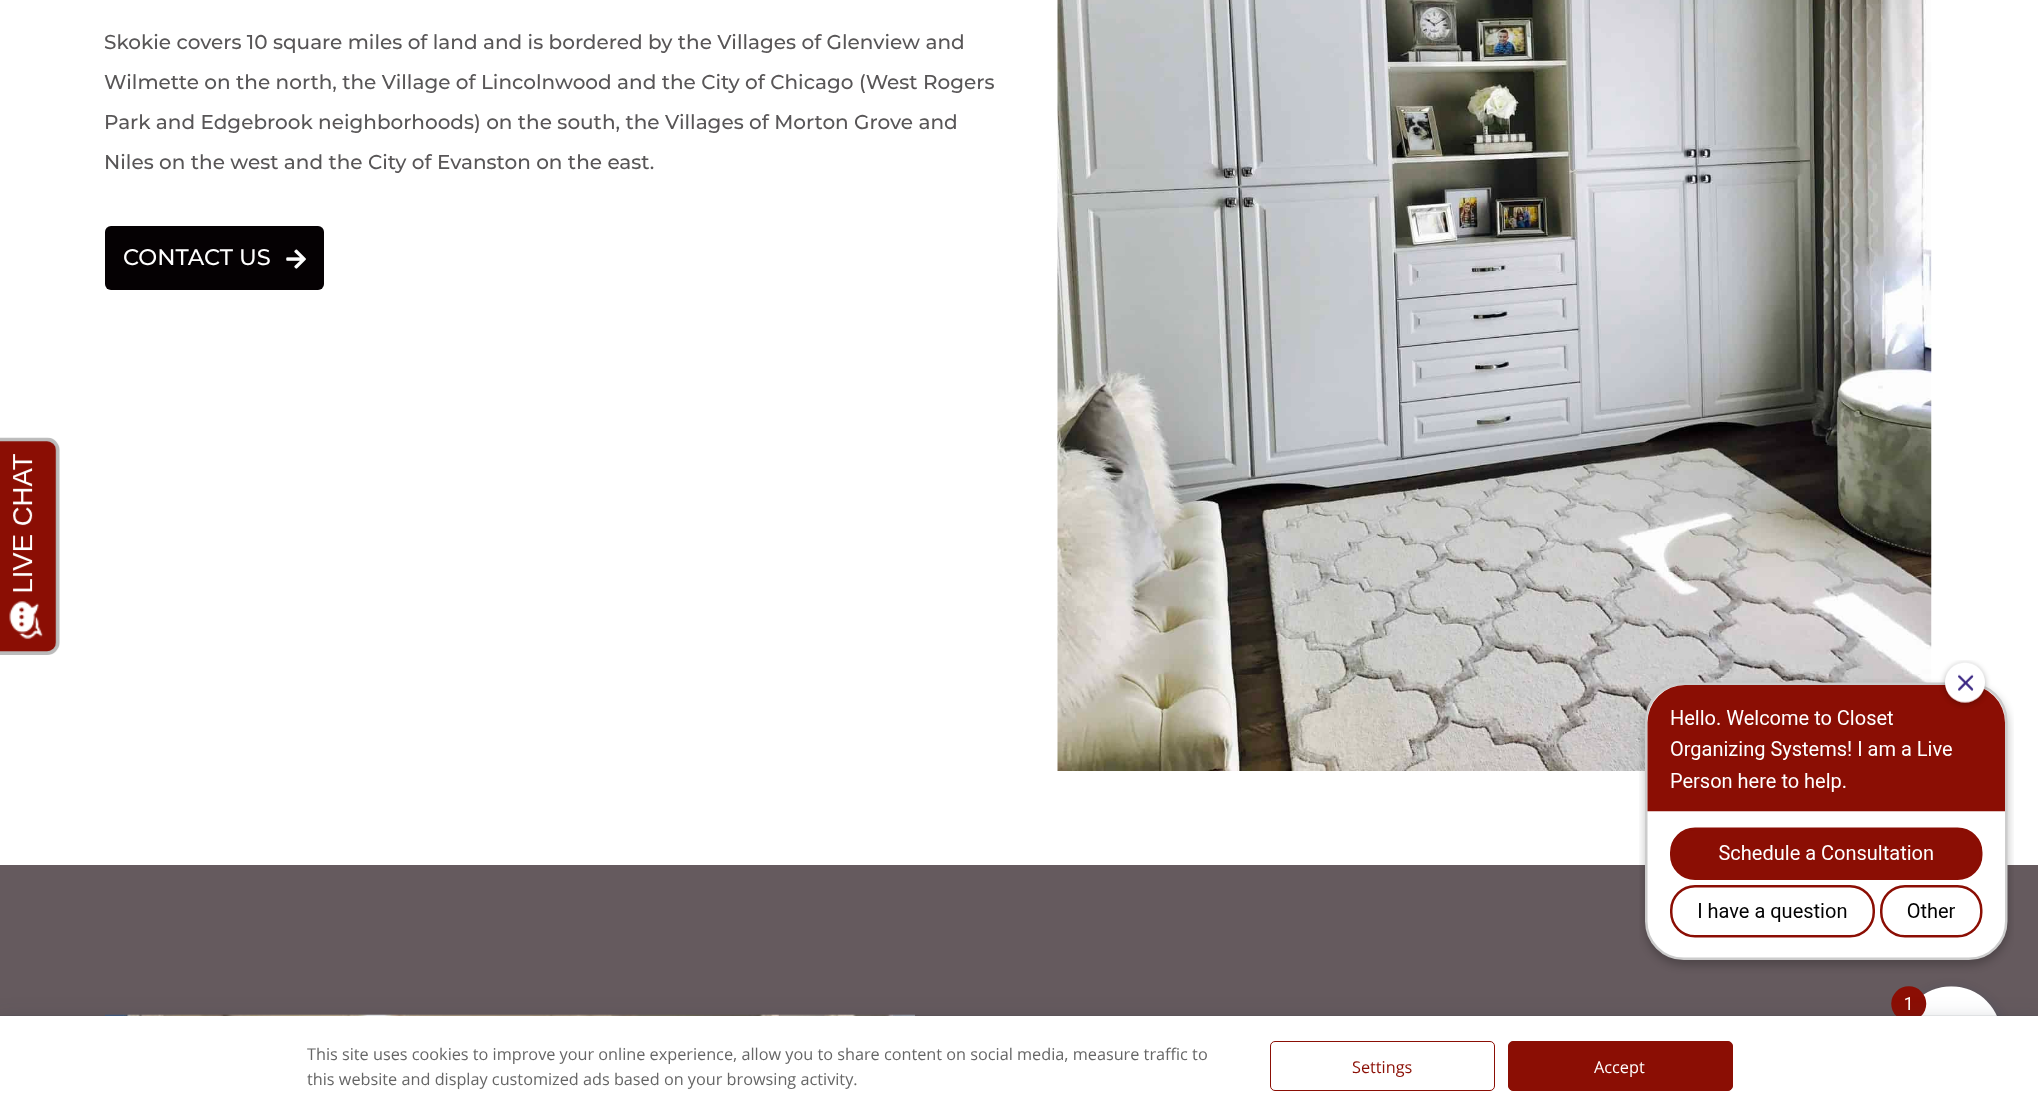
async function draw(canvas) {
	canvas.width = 2038;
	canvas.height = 1116;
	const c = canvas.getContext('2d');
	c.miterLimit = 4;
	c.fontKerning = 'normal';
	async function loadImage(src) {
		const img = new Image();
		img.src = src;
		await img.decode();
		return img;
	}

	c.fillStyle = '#fff';
	c.fillRect(0, 0, 2038, 1116);
	c.font = '500 20px Montserrat';
	c.fillStyle = '#585657';
	for (const [text, x, y] of [
		['Skokie covers 10 square miles of land and is bordered by the Villages of Glenview and', 104, 49],
		['Wilmette on the north, the Village of Lincolnwood and the City of Chicago (West Rogers', 104, 89],
		['Park and Edgebrook neighborhoods) on the south, the Villages of Morton Grove and', 104, 129],
		['Niles on the west and the City of Evanston on the east.', 104, 169],
	]) {
		c.fillText(text, x, y);
	}
	c.fillStyle = '#050103';
	c.beginPath();
	c.roundRect(105, 226, 219, 64, 6);
	c.fill();
	c.font = '500 22.5px Montserrat';
	c.fillStyle = '#fff';
	c.fillText('CONTACT US', 123, 265);
	c.drawImage(await loadImage('img1.png'), 286, 249, 20, 20);
	c.drawImage(await loadImage('img2.png'), 1057, 0, 875, 771);
	c.fillStyle = '#655a5e';
	c.fillRect(0, 865, 2038, 151);
	c.drawImage(await loadImage('img3.png'), 105, 1014, 810, 2);
	c.drawImage(await loadImage('img4.png'), 0, 437, 60, 218);
	c.drawImage(await loadImage('img5.png'), 1639, 660, 375, 356);
	c.fillStyle = '#242f424f';
	c.filter = 'blur(12.5px)';
	c.beginPath();
	c.rect(-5, 1024, 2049, 85);
	c.fill();
	c.filter = 'none';
	c.strokeStyle = '#242f4214';
	c.strokeRect(-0.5, 1015.5, 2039, 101);
	c.fillStyle = '#fff';
	c.fillRect(0, 1016, 2038, 100);
	c.font = '16.25px Open Sans';
	c.fillStyle = '#666';
	c.fillText('This site uses cookies to improve your online experience, allow you to share content on social media, measure traffic to', 307, 1060);
	c.fillText('this website and display customized ads based on your browsing activity.', 307, 1085);
	c.beginPath();
	c.roundRect(1270.5, 1041.5, 224, 49, 4.5);
	c.strokeStyle = '#8b0e04';
	c.stroke();
	c.fillStyle = '#8b0e04';
	c.fillText('Settings', 1352, 1073);
	c.beginPath();
	c.roundRect(1508.5, 1041.5, 224, 49, 4.5);
	c.fill();
	c.stroke();
	c.fillStyle = '#fff';
	c.fillText('Accept', 1594, 1073);
}

draw(document.querySelector('canvas'));
